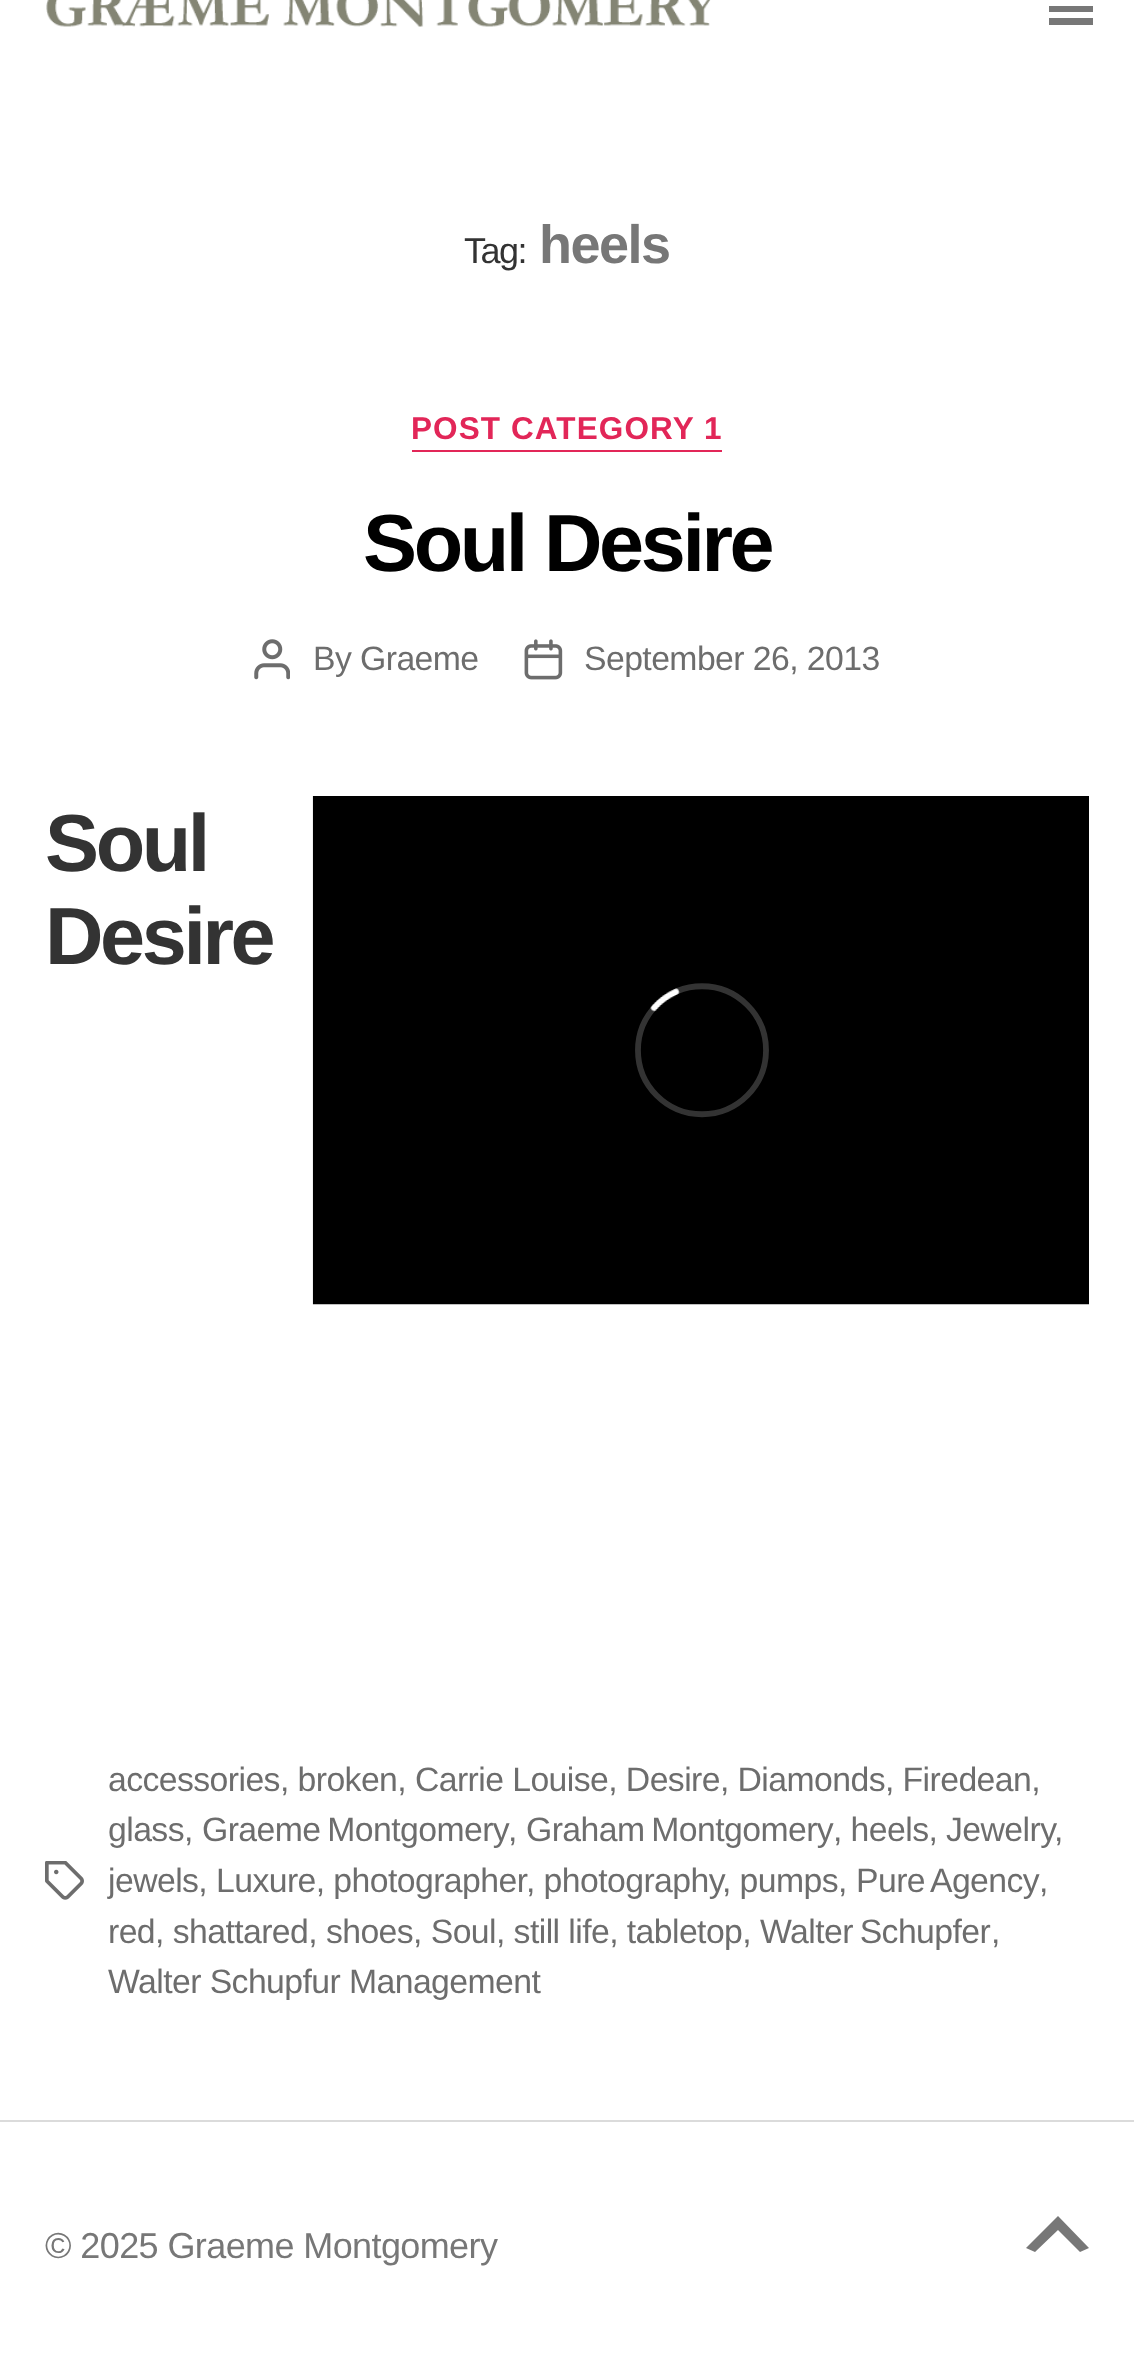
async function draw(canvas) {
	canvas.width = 1134;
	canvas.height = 2368;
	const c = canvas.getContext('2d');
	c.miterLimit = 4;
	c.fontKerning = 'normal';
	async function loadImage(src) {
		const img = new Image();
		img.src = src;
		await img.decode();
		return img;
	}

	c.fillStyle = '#fff';
	c.fillRect(0, 0, 1134, 2368);
	c.drawImage(await loadImage('img1.png'), 46, 0, 665, 27);
	c.fillStyle = '#777';
	c.beginPath();
	c.moveTo(1049, 25);
	c.lineTo(1093, 25);
	c.lineTo(1093, 18);
	c.lineTo(1049, 18);
	c.closePath();
	c.moveTo(1049, -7);
	c.lineTo(1049, 0);
	c.lineTo(1093, 0);
	c.lineTo(1093, -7);
	c.closePath();
	c.moveTo(1049, 12);
	c.lineTo(1093, 12);
	c.lineTo(1093, 6);
	c.lineTo(1049, 6);
	c.closePath();
	c.fill();
	c.letterSpacing = '-1.5px';
	c.font = '36px Liberation Sans';
	c.fillStyle = '#333';
	c.fillText('Tag:', 464, 263);
	c.font = 'bold 54px Liberation Sans';
	c.fillStyle = '#777';
	c.fillText('heels', 539, 263);
	c.fillStyle = '#e22658';
	c.fillRect(412, 450, 310, 2);
	c.letterSpacing = '1.1px';
	c.font = 'bold 31.5px Liberation Sans';
	c.fillText('POST CATEGORY 1', 411, 439);
	c.letterSpacing = '-3.4px';
	c.font = 'bold 81px Liberation Sans';
	c.fillStyle = '#000';
	c.fillText('Soul Desire', 363, 571);
	c.drawImage(await loadImage('img2.png'), 254, 639, 36, 41);
	c.letterSpacing = '-0.57px';
	c.font = '33.75px Liberation Sans';
	c.fillStyle = '#6d6d6d';
	c.fillText('By Graeme', 313, 670);
	c.drawImage(await loadImage('img3.png'), 524, 639, 39, 41);
	c.fillText('September 26, 2013', 584, 670);
	c.letterSpacing = '-3.4px';
	c.font = 'bold 81px Liberation Sans';
	c.fillStyle = '#333';
	c.fillText('Soul', 45, 871);
	c.fillText('Desire', 45, 964);
	c.drawImage(await loadImage('img4.png'), 312, 796, 777, 509);
	c.drawImage(await loadImage('img5.png'), 45, 1861, 39, 39);
	c.letterSpacing = '-0.57px';
	c.font = '33.75px Liberation Sans';
	c.fillStyle = '#6d6d6d';
	c.fillText('accessories, broken, Carrie Louise, Desire, Diamonds, Firedean,', 108, 1791);
	c.fillText('glass,', 108, 1841);
	c.wordSpacing = '-2px';
	c.fillText('Graeme Montgomery', 202, 1841);
	c.wordSpacing = '0px';
	c.fillText(',', 508, 1841);
	c.wordSpacing = '-2px';
	c.fillText('Graham Montgomery', 526, 1841);
	c.wordSpacing = '0px';
	for (const [text, x, y] of [
		[', heels, Jewelry', 833, 1841],
		[',', 1054, 1841],
		['jewels, Luxure, photographer', 108, 1892],
		[', photography', 526, 1892],
		[', pumps,', 722, 1892],
	]) {
		c.fillText(text, x, y);
	}
	c.wordSpacing = '-2px';
	c.fillText('Pure Agency', 856, 1892);
	c.wordSpacing = '0px';
	c.fillText(',', 1039, 1892);
	c.fillText('red, shattared, shoes, Soul, still life, tabletop,', 108, 1943);
	c.wordSpacing = '-2px';
	c.fillText('Walter Schupfer', 760, 1943);
	c.wordSpacing = '0px';
	c.fillText(',', 991, 1943);
	c.fillText('Walter Schupfur Management', 108, 1993);
	c.fillStyle = '#dbdbdb';
	c.fillRect(0, 2120, 1134, 2);
	c.letterSpacing = '-0.6px';
	c.font = '36px Liberation Sans';
	c.fillStyle = '#777';
	c.fillText('© 2025 Graeme Montgomery', 45, 2258);
	c.beginPath();
	c.moveTo(1080, 2252);
	c.lineTo(1058, 2230);
	c.lineTo(1035, 2252);
	c.lineTo(1026, 2248);
	c.lineTo(1058, 2216);
	c.lineTo(1089, 2248);
	c.closePath();
	c.fill();
}

draw(document.querySelector('canvas'));
